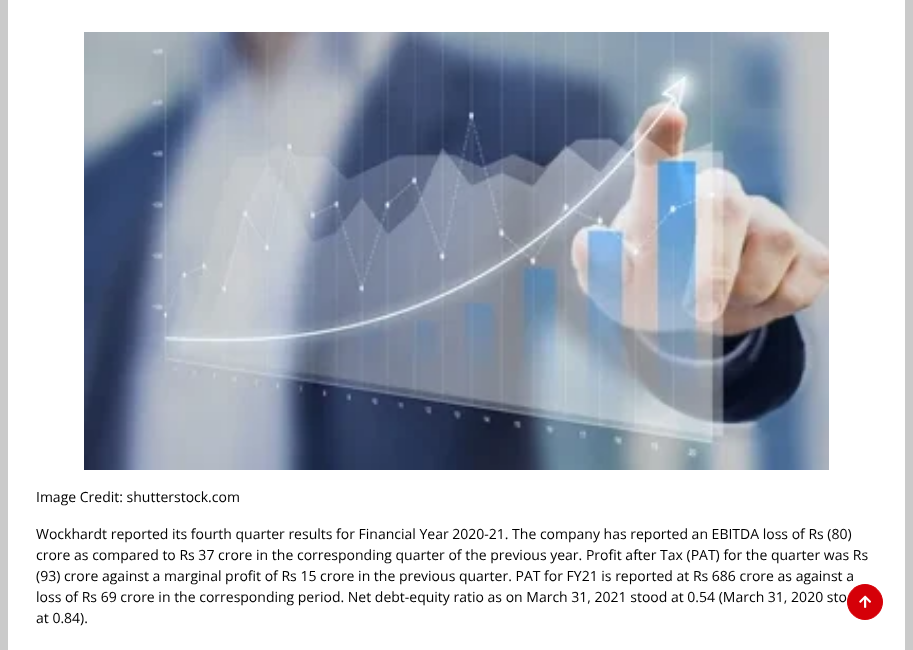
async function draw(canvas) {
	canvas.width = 913;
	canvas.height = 650;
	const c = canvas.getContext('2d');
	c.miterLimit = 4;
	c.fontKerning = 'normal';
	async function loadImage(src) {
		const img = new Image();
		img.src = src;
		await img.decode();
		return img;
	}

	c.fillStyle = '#cacaca';
	c.fillRect(0, 0, 913, 650);
	c.fillStyle = '#fff';
	c.fillRect(8, 0, 897, 650);
	c.drawImage(await loadImage('img1.png'), 84, 32, 745, 438);
	c.font = '14px Open Sans';
	c.fillStyle = '#000';
	for (const [text, x, y] of [
		['Image Credit: shutterstock.com', 36, 502],
		['Wockhardt reported its fourth quarter results for Financial Year 2020-21. The company has reported an EBITDA loss of Rs (80)', 36, 539],
		['crore as compared to Rs 37 crore in the corresponding quarter of the previous year. Profit after Tax (PAT) for the quarter was Rs', 36, 560],
		['(93) crore against a marginal profit of Rs 15 crore in the previous quarter. PAT for FY21 is reported at Rs 686 crore as against a', 36, 581],
		['loss of Rs 69 crore in the corresponding period. Net debt-equity ratio as on March 31, 2021 stood at 0.54 (March 31, 2020 sto', 36, 602],
		['at 0.84).', 36, 623],
	]) {
		c.fillText(text, x, y);
	}
	c.fillStyle = '#d50008';
	c.beginPath();
	c.arc(865, 602, 17.5, 0, 2 * Math.PI);
	c.fill();
	c.strokeStyle = '#d50008';
	c.stroke();
	c.drawImage(await loadImage('img2.png'), 859, 595, 12, 13);
}

draw(document.querySelector('canvas'));
